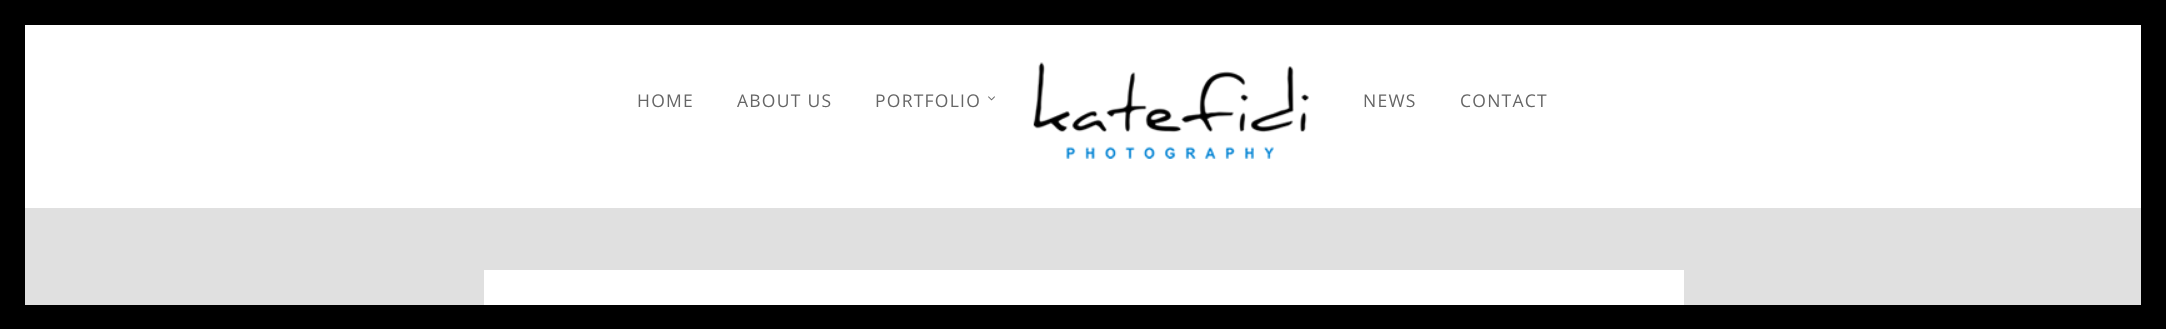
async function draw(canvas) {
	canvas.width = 2166;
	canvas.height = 329;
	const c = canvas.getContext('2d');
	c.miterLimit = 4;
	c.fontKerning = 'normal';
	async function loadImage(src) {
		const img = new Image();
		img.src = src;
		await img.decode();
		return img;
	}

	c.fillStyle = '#fff';
	c.fillRect(0, 0, 2166, 329);
	c.fillStyle = '#000';
	c.fillRect(0, 0, 2166, 25);
	c.fillRect(0, 25, 25, 304);
	c.letterSpacing = '1.25px';
	c.font = '17.5px Open Sans';
	c.fillStyle = '#666';
	for (const [text, x, y] of [
		['HOME', 637, 107],
		['ABOUT US', 737, 107],
		['PORTFOLIO', 875, 107],
	]) {
		c.fillText(text, x, y);
	}
	c.drawImage(await loadImage('img1.png'), 988, 96, 7, 5);
	c.drawImage(await loadImage('img2.png'), 1033, 62, 276, 97);
	c.fillText('NEWS', 1363, 107);
	c.fillText('CONTACT', 1460, 107);
	for (const [x, y, w, h, color] of [
		[25, 208, 2116, 97, '#e0e0e0'],
		[484, 270, 1200, 35, '#fff'],
		[2141, 25, 25, 304, '#000'],
		[25, 305, 2116, 24, '#000'],
	]) {
		c.fillStyle = color;
		c.fillRect(x, y, w, h);
	}
}

draw(document.querySelector('canvas'));
